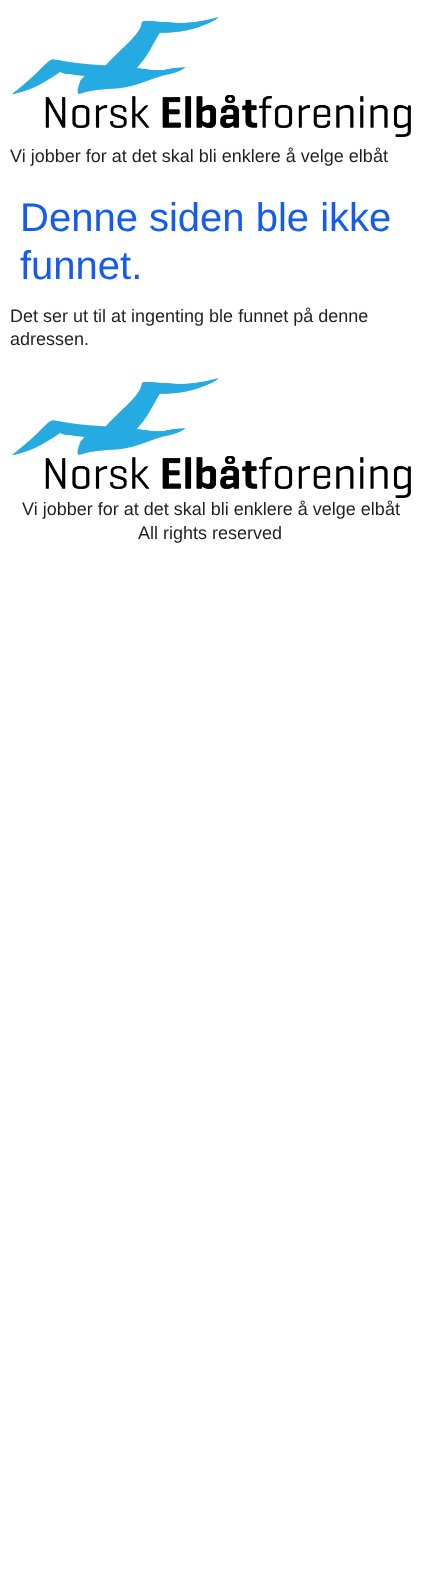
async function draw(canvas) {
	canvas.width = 421;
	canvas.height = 1592;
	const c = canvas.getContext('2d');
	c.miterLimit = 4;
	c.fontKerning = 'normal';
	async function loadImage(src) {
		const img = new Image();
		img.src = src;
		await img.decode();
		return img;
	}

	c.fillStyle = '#fff';
	c.fillRect(0, 0, 421, 1592);
	c.drawImage(await loadImage('img1.png'), 11, 17, 400, 120);
	c.font = '18px Liberation Sans';
	c.fillStyle = '#231f20';
	c.fillText('Vi jobber for at det skal bli enklere å velge elbåt', 10, 162);
	c.font = '40px Liberation Sans';
	c.fillStyle = '#145cec';
	c.fillText('Denne siden ble ikke', 20, 231);
	c.fillText('funnet.', 20, 279);
	c.font = '18px Liberation Sans';
	c.fillStyle = '#231f20';
	c.fillText('Det ser ut til at ingenting ble funnet på denne', 10, 322);
	c.fillText('adressen.', 10, 345);
	c.drawImage(await loadImage('img1.png'), 11, 378, 400, 120);
	c.fillText('Vi jobber for at det skal bli enklere å velge elbåt', 22, 515);
	c.fillText('All rights reserved', 138, 539);
}

draw(document.querySelector('canvas'));
